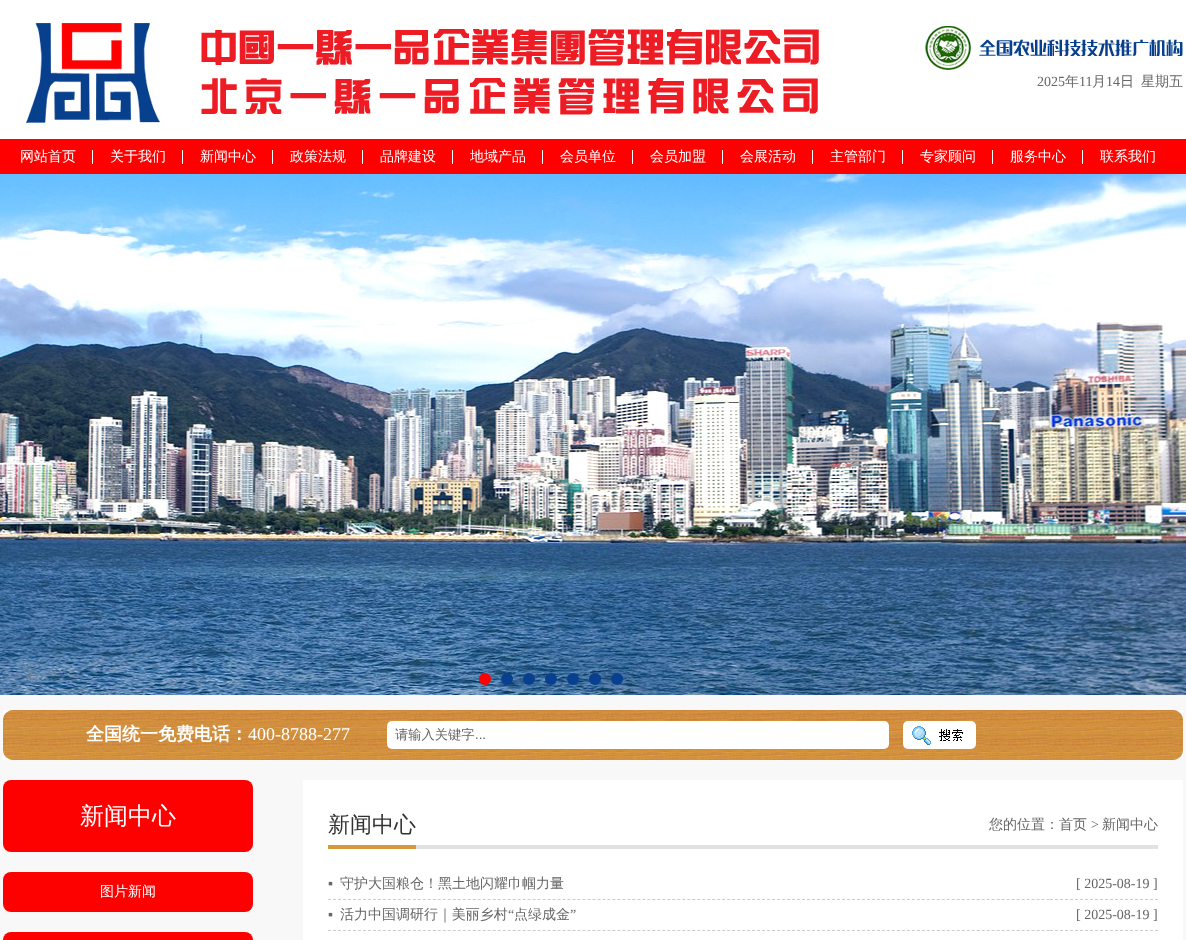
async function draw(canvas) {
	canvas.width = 1186;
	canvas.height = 940;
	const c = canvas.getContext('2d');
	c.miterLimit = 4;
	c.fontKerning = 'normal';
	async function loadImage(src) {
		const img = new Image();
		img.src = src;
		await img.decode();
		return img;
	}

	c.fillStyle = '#f8f8f8';
	c.fillRect(0, 0, 1186, 940);
	c.fillStyle = '#fff';
	c.fillRect(0, 0, 1186, 139);
	c.drawImage(await loadImage('img1.png'), 21, 16, 798, 112);
	c.drawImage(await loadImage('img2.png'), 925, 26, 258, 44);
	c.font = '14px Liberation Serif';
	c.fillStyle = '#666';
	c.fillText('2025', 1037, 86);
	c.font = '500 14px WenQuanYi Zen Hei';
	c.fillText('年', 1065, 86);
	c.font = '14px Liberation Serif';
	c.fillText('11', 1079, 86);
	c.font = '500 14px WenQuanYi Zen Hei';
	c.fillText('月', 1092, 86);
	c.font = '14px Liberation Serif';
	c.fillText('14', 1106, 86);
	c.font = '500 14px WenQuanYi Zen Hei';
	c.fillText('日', 1120, 86);
	c.fillText('星期五', 1141, 86);
	c.fillStyle = '#fe0000';
	c.fillRect(0, 139, 1186, 35);
	c.fillStyle = '#fff';
	c.fillRect(92, 150, 1, 14);
	c.fillText('网站首页', 20, 161);
	c.fillRect(182, 150, 1, 14);
	c.fillText('关于我们', 110, 161);
	c.fillRect(272, 150, 1, 14);
	c.fillText('新闻中心', 200, 161);
	c.fillRect(362, 150, 1, 14);
	c.fillText('政策法规', 290, 161);
	c.fillRect(452, 150, 1, 14);
	c.fillText('品牌建设', 380, 161);
	c.fillRect(542, 150, 1, 14);
	c.fillText('地域产品', 470, 161);
	c.fillRect(632, 150, 1, 14);
	c.fillText('会员单位', 560, 161);
	c.fillRect(722, 150, 1, 14);
	c.fillText('会员加盟', 650, 161);
	c.fillRect(812, 150, 1, 14);
	c.fillText('会展活动', 740, 161);
	c.fillRect(902, 150, 1, 14);
	c.fillText('主管部门', 830, 161);
	c.fillRect(992, 150, 1, 14);
	c.fillText('专家顾问', 920, 161);
	c.fillRect(1082, 150, 1, 14);
	c.fillText('服务中心', 1010, 161);
	c.fillText('联系我们', 1100, 161);
	c.drawImage(await loadImage('img3.png'), 0, 174, 1186, 521);
	c.drawImage(await loadImage('img4.png'), 3, 710, 1180, 50);
	c.font = 'bold 18px WenQuanYi Zen Hei';
	c.fillText('全国统一免费电话：', 86, 740);
	c.font = '18px Liberation Serif';
	c.fillText('400-8788-277', 248, 740);
	c.beginPath();
	c.roundRect(387, 721, 502, 28, 5);
	c.fill();
	c.font = '500 13.25px WenQuanYi Zen Hei';
	c.fillStyle = '#666';
	c.fillText('请输入关键字', 395, 739);
	c.font = '13.25px Liberation Sans';
	c.fillText('...', 475, 739);
	c.fillStyle = '#fff';
	c.beginPath();
	c.roundRect(903, 721, 73, 28, 5);
	c.fill();
	c.drawImage(await loadImage('img5.png'), 912, 722, 51, 23);
	c.fillStyle = '#fd0000';
	c.beginPath();
	c.roundRect(3, 780, 250, 72, 8);
	c.fill();
	c.font = '500 24px WenQuanYi Zen Hei';
	c.fillStyle = '#fff';
	c.fillText('新闻中心', 80, 824);
	c.fillStyle = '#fd0000';
	c.beginPath();
	c.roundRect(3, 872, 250, 40, 8);
	c.fill();
	c.font = '500 14px WenQuanYi Zen Hei';
	c.fillStyle = '#fff';
	c.fillText('图片新闻', 100, 896);
	c.fillStyle = '#fd0000';
	c.beginPath();
	c.roundRect(3, 932, 250, 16, 8);
	c.fill();
	for (const [x, y, w, h, color] of [
		[303, 780, 880, 160, '#fff'],
		[416, 845, 742, 4, '#e0e1e5'],
		[328, 845, 88, 4, '#d6993c'],
	]) {
		c.fillStyle = color;
		c.fillRect(x, y, w, h);
	}
	c.font = '500 22px WenQuanYi Zen Hei';
	c.fillStyle = '#333';
	c.fillText('新闻中心', 328, 832);
	c.font = '500 14px WenQuanYi Zen Hei';
	c.fillStyle = '#666';
	c.fillText('您的位置：首页', 989, 829);
	c.font = '14px Liberation Serif';
	c.fillText('>', 1091, 829);
	c.font = '500 14px WenQuanYi Zen Hei';
	c.fillText('新闻中心', 1102, 829);
	c.beginPath();
	c.moveTo(328, 899.5);
	c.lineTo(1050, 899.5);
	c.strokeStyle = '#ccc';
	c.setLineDash([3, 1.99]);
	c.stroke();
	c.font = '14px Liberation Serif';
	c.fillText('▪', 328, 888);
	c.font = '500 14px WenQuanYi Zen Hei';
	c.fillText('守护大国粮仓！黑土地闪耀巾帼力量', 340, 888);
	c.beginPath();
	c.moveTo(1050, 899.5);
	c.lineTo(1158, 899.5);
	c.setLineDash([3, 2]);
	c.stroke();
	c.font = '14px Liberation Serif';
	c.fillText('[ 2025-08-19 ]', 1076, 888);
	c.beginPath();
	c.moveTo(328, 930.5);
	c.lineTo(1050, 930.5);
	c.setLineDash([3, 1.99]);
	c.stroke();
	c.font = '500 14px WenQuanYi Zen Hei';
	c.fillText('活力中国调研行｜美丽乡村', 340, 919);
	c.font = '14px Liberation Serif';
	c.fillText('“', 508, 919);
	c.font = '500 14px WenQuanYi Zen Hei';
	c.fillText('点绿成金', 514, 919);
	c.font = '14px Liberation Serif';
	c.fillText('”', 570, 919);
	c.fillText('▪', 328, 919);
	c.beginPath();
	c.moveTo(1050, 930.5);
	c.lineTo(1158, 930.5);
	c.setLineDash([3, 2]);
	c.stroke();
	c.fillText('[ 2025-08-19 ]', 1076, 919);
}

draw(document.querySelector('canvas'));
